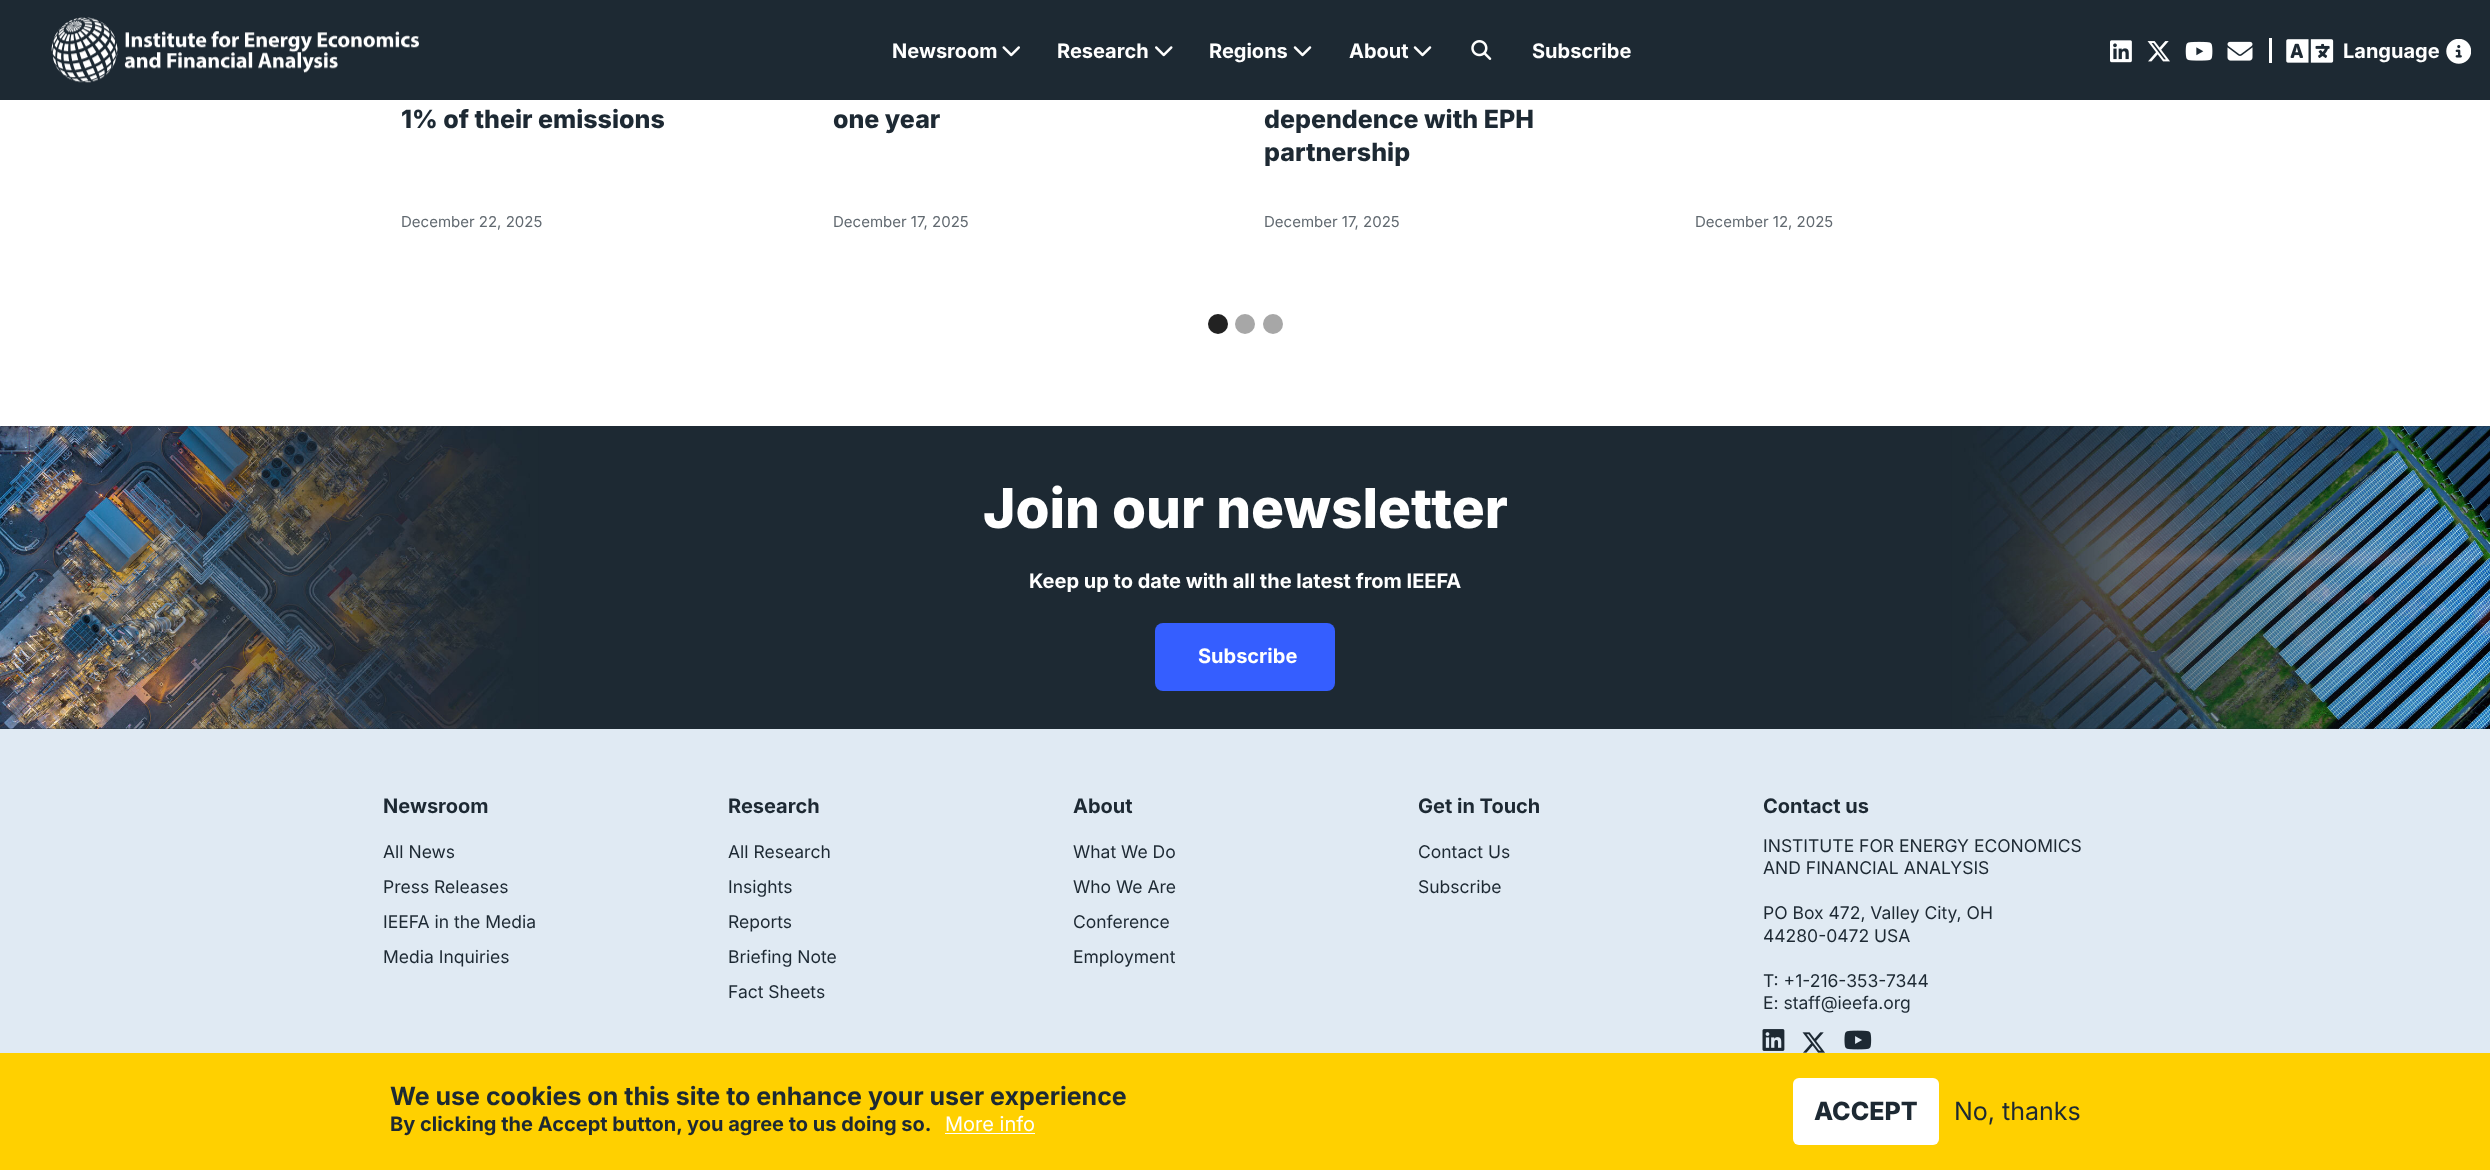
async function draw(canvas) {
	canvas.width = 2490;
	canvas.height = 1170;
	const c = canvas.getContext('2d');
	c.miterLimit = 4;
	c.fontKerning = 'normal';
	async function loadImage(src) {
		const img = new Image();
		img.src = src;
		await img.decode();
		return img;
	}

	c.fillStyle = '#fff';
	c.fillRect(0, 0, 2490, 1170);
	c.fillStyle = '#1d2933';
	c.fillRect(0, 0, 2490, 100);
	c.drawImage(await loadImage('img1.png'), 51, 17, 368, 66);
	c.font = 'bold 20px Inter';
	c.fillStyle = '#fff';
	c.fillText('Newsroom', 892, 58);
	c.drawImage(await loadImage('img2.png'), 1002, 46, 18, 11);
	c.fillText('Research', 1057, 58);
	c.drawImage(await loadImage('img3.png'), 1155, 46, 18, 11);
	c.fillText('Regions', 1209, 58);
	c.drawImage(await loadImage('img4.png'), 1293, 46, 19, 11);
	c.fillText('About', 1349, 58);
	c.drawImage(await loadImage('img4.png'), 1413, 46, 19, 11);
	c.drawImage(await loadImage('img5.png'), 1471, 40, 21, 20);
	c.fillText('Subscribe', 1532, 58);
	c.drawImage(await loadImage('img6.png'), 2110, 40, 22, 23);
	c.drawImage(await loadImage('img7.png'), 2147, 41, 23, 21);
	c.drawImage(await loadImage('img8.png'), 2185, 41, 28, 20);
	c.drawImage(await loadImage('img9.png'), 2227, 41, 26, 20);
	c.fillRect(2269, 38, 3, 25);
	c.drawImage(await loadImage('img10.png'), 2286, 39, 48, 24);
	c.fillText('Language', 2343, 58);
	c.drawImage(await loadImage('img11.png'), 2446, 39, 25, 25);
	c.font = '800 25px Inter';
	c.fillStyle = '#1d2933';
	c.fillText('1% of their emissions', 401, 128);
	c.font = '15px Inter';
	c.fillStyle = '#616970';
	c.fillText('December 22, 2025', 401, 227);
	c.font = '800 25px Inter';
	c.fillStyle = '#1d2933';
	c.fillText('one year', 833, 128);
	c.font = '15px Inter';
	c.fillStyle = '#616970';
	c.fillText('December 17, 2025', 833, 227);
	c.font = '800 25px Inter';
	c.fillStyle = '#1d2933';
	c.fillText('dependence with EPH', 1264, 128);
	c.fillText('partnership', 1264, 161);
	c.font = '15px Inter';
	c.fillStyle = '#616970';
	c.fillText('December 17, 2025', 1264, 227);
	c.fillText('December 12, 2025', 1695, 227);
	c.fillStyle = '#222';
	c.beginPath();
	c.arc(1218, 324, 10, 0, 2 * Math.PI);
	c.fill();
	c.fillStyle = '#a7a7a7';
	c.beginPath();
	c.arc(1245, 324, 10, 0, 2 * Math.PI);
	c.fill();
	c.beginPath();
	c.arc(1273, 324, 10, 0, 2 * Math.PI);
	c.fill();
	c.fillStyle = '#1d2933';
	c.fillRect(0, 426, 2490, 303);
	c.drawImage(await loadImage('img12.png'), 0, 426, 2490, 303);
	c.font = '800 55px Inter';
	c.fillStyle = '#fff';
	c.fillText('Join our newsletter', 983, 528);
	c.font = 'bold 20px Inter';
	c.fillText('Keep up to date with all the latest from IEEFA', 1029, 588);
	c.fillStyle = '#355eff';
	c.beginPath();
	c.roundRect(1155, 623, 180, 68, 8);
	c.fill();
	c.fillStyle = '#fff';
	c.fillText('Subscribe', 1198, 663);
	c.fillStyle = '#e0eaf3';
	c.fillRect(0, 729, 2490, 324);
	c.fillStyle = '#1d2933';
	c.fillText('Newsroom', 383, 813);
	c.font = '17.5px Inter';
	for (const [text, x, y] of [
		['All News', 383, 858],
		['Press Releases', 383, 893],
		['IEEFA in the Media', 383, 928],
		['Media Inquiries', 383, 963],
	]) {
		c.fillText(text, x, y);
	}
	c.font = 'bold 20px Inter';
	c.fillText('Research', 728, 813);
	c.font = '17.5px Inter';
	for (const [text, x, y] of [
		['All Research', 728, 858],
		['Insights', 728, 893],
		['Reports', 728, 928],
		['Briefing Note', 728, 963],
		['Fact Sheets', 728, 998],
	]) {
		c.fillText(text, x, y);
	}
	c.font = 'bold 20px Inter';
	c.fillText('About', 1073, 813);
	c.font = '17.5px Inter';
	for (const [text, x, y] of [
		['What We Do', 1073, 858],
		['Who We Are', 1073, 893],
		['Conference', 1073, 928],
		['Employment', 1073, 963],
	]) {
		c.fillText(text, x, y);
	}
	c.font = 'bold 20px Inter';
	c.fillText('Get in Touch', 1418, 813);
	c.font = '17.5px Inter';
	c.fillText('Contact Us', 1418, 858);
	c.fillText('Subscribe', 1418, 893);
	c.font = 'bold 20px Inter';
	c.fillText('Contact us', 1763, 813);
	c.font = '17.5px Inter';
	for (const [text, x, y] of [
		['INSTITUTE FOR ENERGY ECONOMICS', 1763, 852],
		['AND FINANCIAL ANALYSIS', 1763, 874],
		['PO Box 472, Valley City, OH', 1763, 919],
		['44280-0472 USA', 1763, 942],
		['T: +1-216-353-7344', 1763, 987],
		['E: staff@ieefa.org', 1763, 1009],
	]) {
		c.fillText(text, x, y);
	}
	c.drawImage(await loadImage('img13.png'), 1762, 1029, 23, 22);
	c.drawImage(await loadImage('img14.png'), 1802, 1032, 23, 21);
	c.drawImage(await loadImage('img15.png'), 1844, 1030, 28, 20);
	c.fillStyle = '#ffd000';
	c.fillRect(0, 1053, 2490, 117);
	c.font = 'bold 25px Inter';
	c.fillStyle = '#1d2933';
	c.fillText('We use cookies on this site to enhance your user experience', 390, 1105);
	c.font = 'bold 20px Inter';
	c.fillText('By clicking the Accept button, you agree to us doing so.', 390, 1131);
	c.font = '20px Inter';
	c.fillStyle = '#fff';
	c.fillText('More info', 945, 1131);
	c.fillRect(945, 1133, 90, 1);
	c.beginPath();
	c.roundRect(1793, 1078, 146, 67, 6);
	c.fill();
	c.font = '800 25px Inter';
	c.fillStyle = '#1d2933';
	c.fillText('ACCEPT', 1814, 1120);
	c.font = '25px Inter';
	c.fillText('No, thanks', 1954, 1120);
}

draw(document.querySelector('canvas'));
